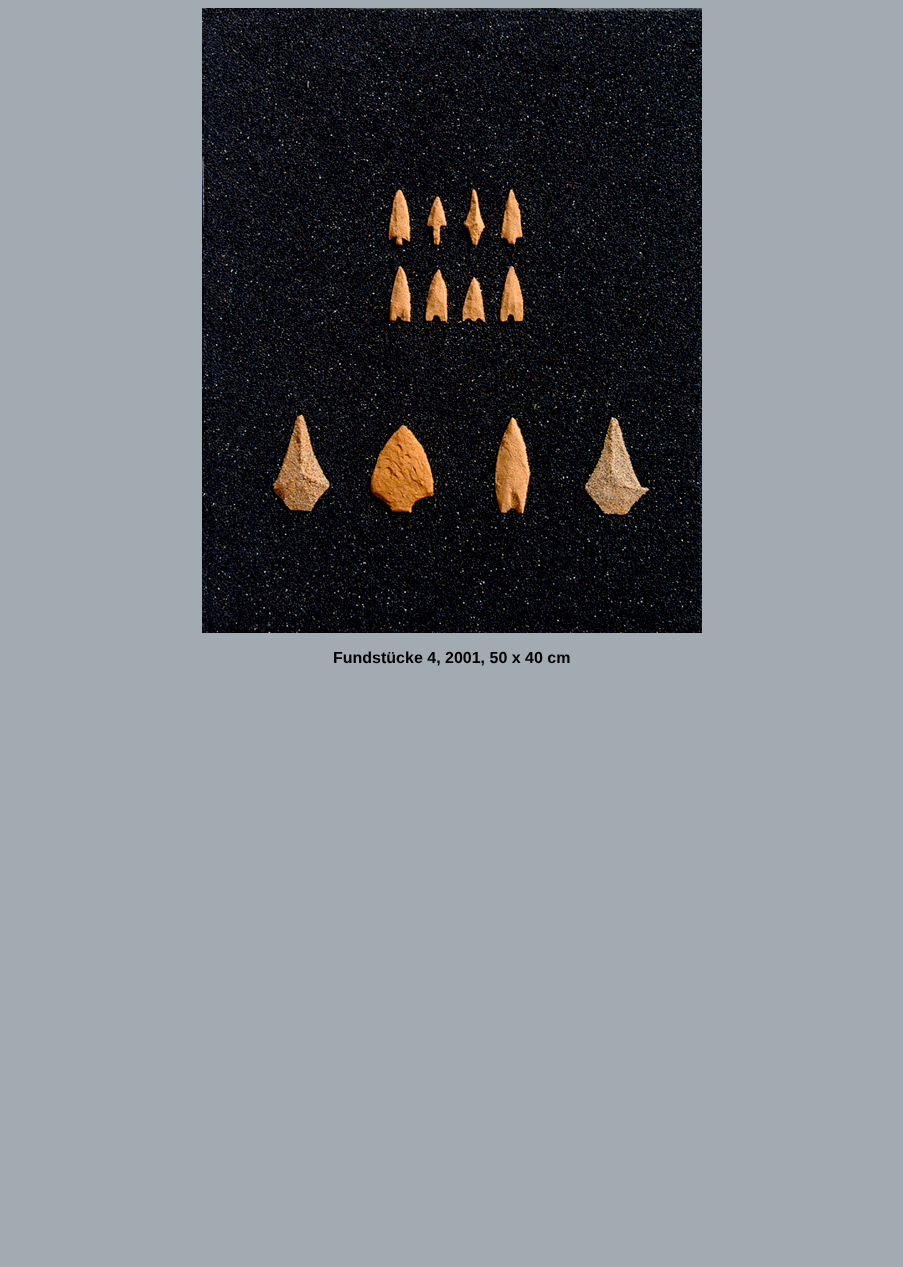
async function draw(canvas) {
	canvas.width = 903;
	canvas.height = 1267;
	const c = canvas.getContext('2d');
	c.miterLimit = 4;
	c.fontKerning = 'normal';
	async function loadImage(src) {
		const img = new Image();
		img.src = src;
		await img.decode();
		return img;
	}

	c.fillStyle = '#a2abb2';
	c.fillRect(0, 0, 903, 1267);
	c.drawImage(await loadImage('img1.png'), 202, 8, 500, 625);
	c.font = 'bold 16px Liberation Sans';
	c.fillStyle = '#000';
	c.fillText('Fundstücke 4, 2001, 50 x 40 cm', 333, 663);
}

draw(document.querySelector('canvas'));
